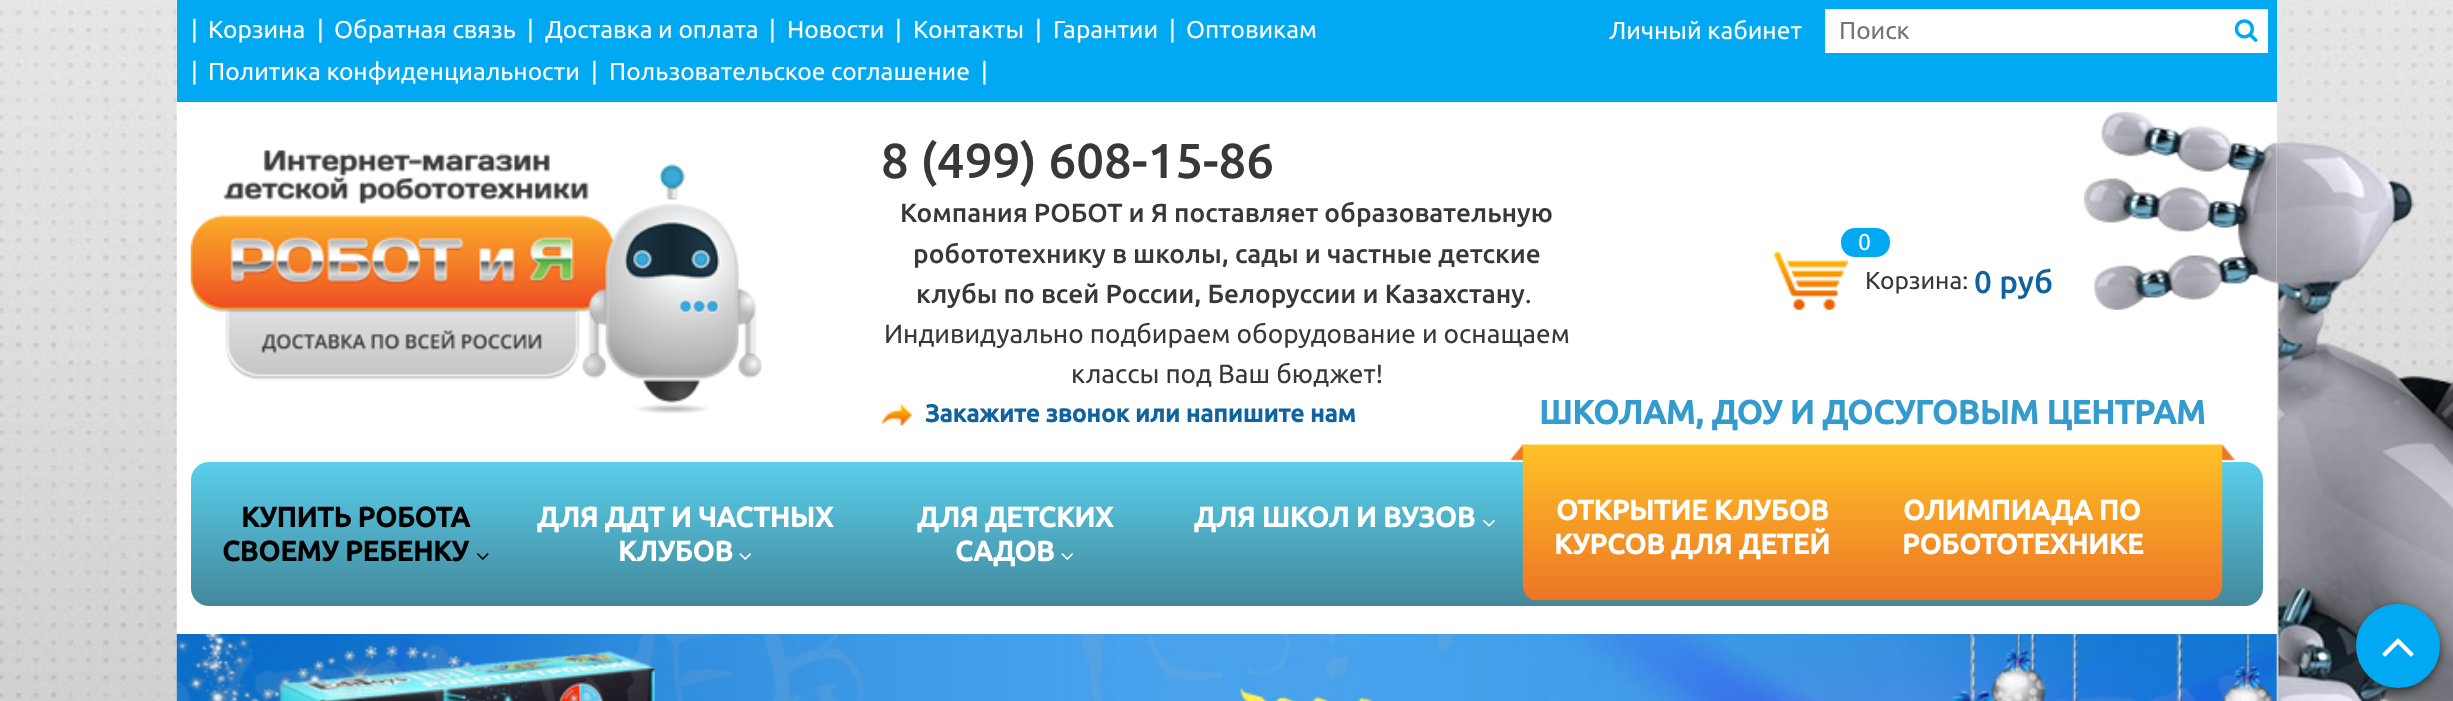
async function draw(canvas) {
	canvas.width = 2453;
	canvas.height = 701;
	const c = canvas.getContext('2d');
	c.miterLimit = 4;
	c.fontKerning = 'normal';
	async function loadImage(src) {
		const img = new Image();
		img.src = src;
		await img.decode();
		return img;
	}
	let gradient;

	c.fillStyle = '#fff';
	c.fillRect(0, 0, 2453, 701);
	c.drawImage(await loadImage('img1.png'), 0, 0, 177, 701);
	c.drawImage(await loadImage('img2.png'), 2276, 0, 177, 701);
	c.fillStyle = '#01a9f2';
	c.fillRect(177, 0, 2100, 102);
	c.font = '24.5px Ubuntu';
	c.fillStyle = '#fff';
	for (const [text, x, y] of [
		['|', 191, 38],
		['Корзина', 208, 38],
		['|', 317, 38],
		['Обратная связь', 334, 38],
		['|', 527, 38],
		['Доставка и оплата', 545, 38],
		['|', 769, 38],
		['Новости', 787, 38],
		['|', 895, 38],
		['Контакты', 913, 38],
		['|', 1035, 38],
		['Гарантии', 1053, 38],
		['|', 1169, 38],
		['Оптовикам', 1186, 38],
		['|', 191, 80],
		['Политика конфиденциальности', 208, 80],
		['|', 591, 80],
		['Пользовательское соглашение', 609, 80],
		['|', 981, 80],
		['Личный кабинет', 1609, 39],
	]) {
		c.fillText(text, x, y);
	}
	c.fillRect(1825, 9, 443, 44);
	c.fillStyle = '#757575';
	c.fillText('Поиск', 1839, 39);
	c.drawImage(await loadImage('img3.png'), 2234, 19, 24, 23);
	c.drawImage(await loadImage('img12.png'), 176, 633, 2101, 68);
	c.fillStyle = '#fff';
	c.fillRect(177, 102, 2100, 532);
	c.drawImage(await loadImage('img4.png'), 2084, 111, 193, 199);
	c.drawImage(await loadImage('img5.png'), 190, 150, 572, 263);
	c.font = '500 49px Ubuntu';
	c.fillStyle = '#383838';
	c.fillText('8 (499) 608-15-86', 881, 178);
	c.font = '500 26.25px Ubuntu';
	for (const [text, x, y] of [
		['Компания РОБОТ и Я поставляет образовательную', 900, 222],
		['робототехнику в школы, сады и частные детские', 913, 263],
		['клубы по всей России, Белоруссии и Казахстану', 916, 303],
	]) {
		c.fillText(text, x, y);
	}
	c.font = '26.25px Ubuntu';
	for (const [text, x, y] of [
		['.', 1525, 303],
		['Индивидуально подбираем оборудование и оснащаем', 884, 343],
		['классы под Ваш бюджет!', 1071, 383],
	]) {
		c.fillText(text, x, y);
	}
	c.drawImage(await loadImage('img6.png'), 882, 404, 30, 22);
	c.font = 'bold 24.5px Ubuntu';
	c.fillStyle = '#0f649f';
	c.fillText('Закажите звонок или напишите нам', 925, 422);
	c.drawImage(await loadImage('img7.png'), 1774, 252, 74, 58);
	c.fillStyle = '#00a9f2';
	c.beginPath();
	c.roundRect(1841, 228, 49, 29, 14);
	c.fill();
	c.font = '23px Ubuntu';
	c.fillStyle = '#fff';
	c.fillText('0', 1858, 250);
	c.font = '24.5px Ubuntu';
	c.fillStyle = '#383838';
	c.fillText('Корзина:', 1865, 289);
	c.font = '500 31.5px Ubuntu';
	c.fillStyle = '#0f649f';
	c.fillText('0 руб', 1974, 293);
	gradient = c.createLinearGradient(1227, 462, 1227, 606);
	gradient.addColorStop(0, '#59ceeb');
	gradient.addColorStop(1, '#43889b');
	c.fillStyle = gradient;
	c.beginPath();
	c.roundRect(191, 462, 2072, 144, 18);
	c.fill();
	c.font = 'bold 28px Ubuntu';
	c.fillStyle = '#000';
	c.fillText('КУПИТЬ РОБОТА', 241, 527);
	c.fillText('СВОЕМУ РЕБЕНКУ', 222, 561);
	c.drawImage(await loadImage('img8.png'), 477, 553, 12, 7);
	c.fillStyle = '#fff';
	c.fillText('ДЛЯ ДДТ И ЧАСТНЫХ', 537, 527);
	c.fillText('КЛУБОВ', 618, 561);
	c.drawImage(await loadImage('img9.png'), 739, 553, 12, 7);
	c.fillText('ДЛЯ ДЕТСКИХ', 917, 527);
	c.fillText('САДОВ', 955, 561);
	c.drawImage(await loadImage('img9.png'), 1061, 553, 12, 7);
	c.fillText('ДЛЯ ШКОЛ И ВУЗОВ', 1194, 527);
	c.drawImage(await loadImage('img10.png'), 1483, 520, 12, 7);
	c.font = 'bold 33.25px Ubuntu';
	c.fillStyle = '#339bce';
	c.fillText('ШКОЛАМ, ДОУ И ДОСУГОВЫМ ЦЕНТРАМ', 1539, 424);
	c.drawImage(await loadImage('img11.png'), 1510, 444, 725, 157);
	c.font = 'bold 28px Ubuntu';
	c.fillStyle = '#fff';
	for (const [text, x, y] of [
		['ОТКРЫТИЕ КЛУБОВ', 1556, 520],
		['КУРСОВ ДЛЯ ДЕТЕЙ', 1554, 554],
		['ОЛИМПИАДА ПО', 1903, 520],
		['РОБОТОТЕХНИКЕ', 1902, 554],
	]) {
		c.fillText(text, x, y);
	}
	c.fillStyle = '#333';
	c.filter = 'blur(5px)';
	c.beginPath();
	c.roundRect(2356, 607, 84, 84, 42);
	c.fill();
	c.filter = 'none';
	c.fillStyle = '#00a9f2';
	c.beginPath();
	c.arc(2398, 646, 41, 0, 2 * Math.PI);
	c.fill();
	c.strokeStyle = '#00a9f2';
	c.lineWidth = 2;
	c.stroke();
	c.drawImage(await loadImage('img13.png'), 2382, 638, 32, 19);
}

draw(document.querySelector('canvas'));
